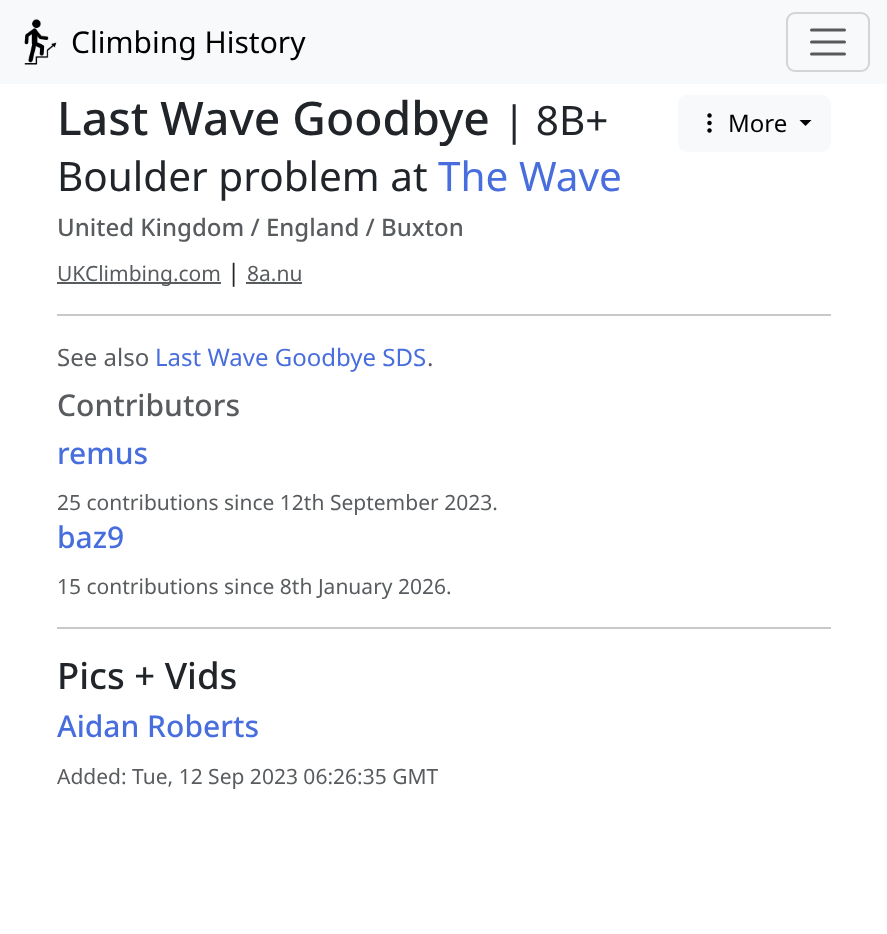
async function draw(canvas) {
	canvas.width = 887;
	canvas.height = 934;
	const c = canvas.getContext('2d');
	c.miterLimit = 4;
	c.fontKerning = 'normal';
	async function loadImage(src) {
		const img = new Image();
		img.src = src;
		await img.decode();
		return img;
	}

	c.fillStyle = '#fff';
	c.fillRect(0, 0, 887, 934);
	c.fillStyle = '#f8f9fa';
	c.fillRect(0, 0, 887, 84);
	c.drawImage(await loadImage('img1.png'), 24, 19, 33, 46);
	c.font = '30px Noto Sans';
	c.fillStyle = '#000';
	c.fillText('Climbing History', 71, 53);
	c.beginPath();
	c.roundRect(787, 13, 82, 58, 8);
	c.strokeStyle = '#d3d4d5';
	c.lineWidth = 2;
	c.stroke();
	c.beginPath();
	c.moveTo(811.5, 30);
	c.lineTo(844.5, 30);
	c.moveTo(811.5, 42);
	c.lineTo(844.5, 42);
	c.moveTo(811.5, 54);
	c.lineTo(844.5, 54);
	c.strokeStyle = '#575a5d';
	c.lineWidth = 3;
	c.lineCap = 'round';
	c.stroke();
	c.font = '500 46.25px Noto Sans';
	c.fillStyle = '#212529';
	c.fillText('Last Wave Goodbye', 57, 135);
	c.font = '40.5px Noto Sans';
	c.fillText('| 8B+', 503, 135);
	c.fillText('Boulder problem at', 57, 191);
	c.fillStyle = '#486ede';
	c.fillText('The Wave', 438, 191);
	c.fillStyle = '#f8f9fa';
	c.beginPath();
	c.roundRect(678, 95, 153, 57, 9);
	c.fill();
	c.drawImage(await loadImage('img2.png'), 707, 113, 5, 20);
	c.font = '24px Noto Sans';
	c.fillStyle = '#000';
	c.fillText('More', 728, 132);
	c.beginPath();
	c.moveTo(799.5, 120);
	c.lineTo(811.5, 120);
	c.lineTo(805.5, 126);
	c.closePath();
	c.fill();
	c.font = '500 24px Noto Sans';
	c.fillStyle = '#595c5f';
	c.fillText('United Kingdom / England / Buxton', 57, 236);
	c.fillRect(57, 282, 164, 2);
	c.font = '21px Noto Sans';
	c.fillText('UKClimbing.com', 57, 281);
	c.font = '24px Noto Sans';
	c.fillStyle = '#212529';
	c.fillText('|', 227, 281);
	c.font = '21px Noto Sans';
	c.fillStyle = '#595c5f';
	c.fillText('8a.nu', 247, 281);
	c.fillRect(246, 282, 56, 2);
	c.fillStyle = '#c8c9ca';
	c.fillRect(57, 314, 774, 2);
	c.font = '24px Noto Sans';
	c.fillStyle = '#595c5f';
	c.fillText('See also', 57, 366);
	c.fillStyle = '#486ede';
	c.fillText('Last Wave Goodbye SDS', 155, 366);
	c.fillStyle = '#595c5f';
	c.fillText('.', 427, 366);
	c.font = '500 30px Noto Sans';
	c.fillText('Contributors', 57, 416);
	c.fillStyle = '#486ede';
	c.fillText('remus', 57, 464);
	c.font = '21px Noto Sans';
	c.fillStyle = '#595c5f';
	c.fillText('25 contributions since 12th September 2023.', 57, 510);
	c.font = '500 30px Noto Sans';
	c.fillStyle = '#486ede';
	c.fillText('baz9', 57, 548);
	c.font = '21px Noto Sans';
	c.fillStyle = '#595c5f';
	c.fillText('15 contributions since 8th January 2026.', 57, 594);
	c.fillStyle = '#c8c9ca';
	c.fillRect(57, 627, 774, 2);
	c.font = '500 36.5px Noto Sans';
	c.fillStyle = '#212529';
	c.fillText('Pics + Vids', 57, 689);
	c.font = '500 30px Noto Sans';
	c.fillStyle = '#486ede';
	c.fillText('Aidan Roberts', 57, 737);
	c.font = '21px Noto Sans';
	c.fillStyle = '#595c5f';
	c.fillText('Added: Tue, 12 Sep 2023 06:26:35 GMT', 57, 784);
}

draw(document.querySelector('canvas'));
